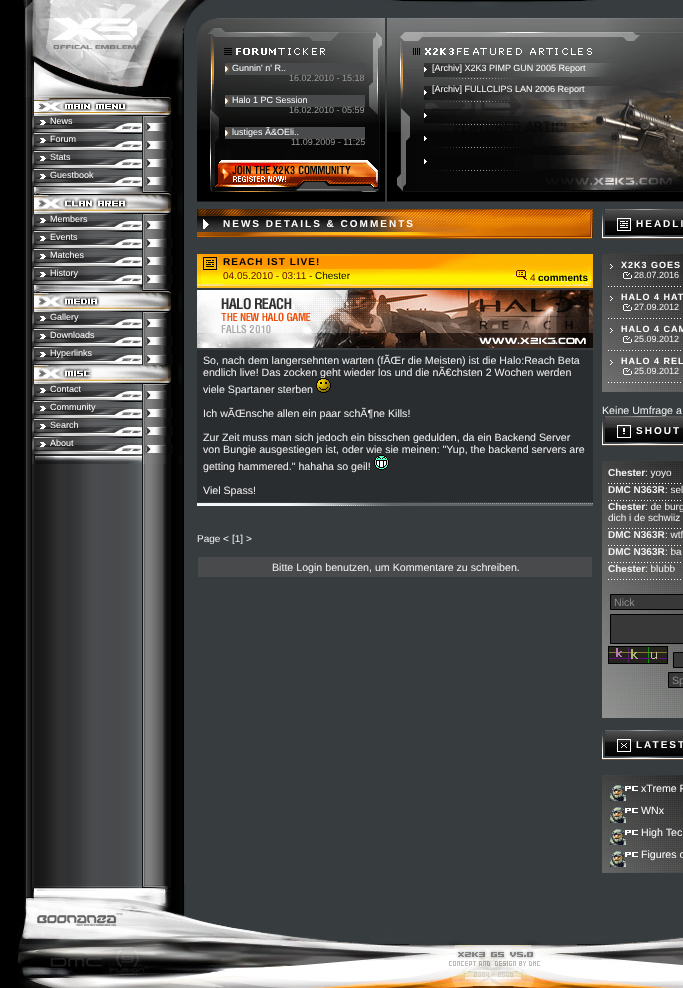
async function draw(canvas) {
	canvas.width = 683;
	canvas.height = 988;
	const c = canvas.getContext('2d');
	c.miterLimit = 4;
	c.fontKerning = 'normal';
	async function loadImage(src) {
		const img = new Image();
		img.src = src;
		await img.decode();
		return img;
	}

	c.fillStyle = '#000';
	c.fillRect(0, 0, 683, 988);
	c.drawImage(await loadImage('img1.png'), 24, 97, 159, 788);
	c.drawImage(await loadImage('img2.png'), 23, 0, 161, 97);
	c.drawImage(await loadImage('img3.png'), 32, 97, 150, 18);
	c.drawImage(await loadImage('img4.png'), 32, 115, 139, 17);
	c.font = '9px Liberation Sans';
	c.fillStyle = '#fff';
	c.fillText('News', 50, 124);
	c.drawImage(await loadImage('img5.png'), 32, 133, 141, 17);
	c.fillText('Forum', 50, 142);
	c.drawImage(await loadImage('img5.png'), 32, 151, 141, 17);
	c.fillText('Stats', 50, 160);
	c.drawImage(await loadImage('img5.png'), 32, 169, 141, 17);
	c.fillText('Guestbook', 50, 178);
	c.drawImage(await loadImage('img6.png'), 32, 187, 139, 8);
	c.drawImage(await loadImage('img7.png'), 32, 195, 150, 18);
	c.drawImage(await loadImage('img4.png'), 32, 213, 139, 17);
	c.fillText('Members', 50, 222);
	c.drawImage(await loadImage('img5.png'), 32, 231, 141, 17);
	c.fillText('Events', 50, 240);
	c.drawImage(await loadImage('img5.png'), 32, 249, 141, 17);
	c.fillText('Matches', 50, 258);
	c.drawImage(await loadImage('img5.png'), 32, 267, 141, 17);
	c.fillText('History', 50, 276);
	c.drawImage(await loadImage('img6.png'), 32, 285, 139, 8);
	c.drawImage(await loadImage('img8.png'), 32, 293, 150, 18);
	c.drawImage(await loadImage('img4.png'), 32, 311, 139, 17);
	c.fillText('Gallery', 50, 320);
	c.drawImage(await loadImage('img5.png'), 32, 329, 141, 17);
	c.fillText('Downloads', 50, 338);
	c.drawImage(await loadImage('img5.png'), 32, 347, 141, 17);
	c.fillText('Hyperlinks', 50, 356);
	c.drawImage(await loadImage('img9.png'), 32, 365, 150, 18);
	c.drawImage(await loadImage('img4.png'), 32, 383, 139, 17);
	c.fillText('Contact', 50, 392);
	c.drawImage(await loadImage('img5.png'), 32, 401, 141, 17);
	c.fillText('Community', 50, 410);
	c.drawImage(await loadImage('img5.png'), 32, 419, 141, 17);
	c.fillText('Search', 50, 428);
	c.drawImage(await loadImage('img5.png'), 32, 437, 141, 17);
	c.fillText('About', 50, 446);
	c.drawImage(await loadImage('img10.png'), 32, 455, 150, 9);
	c.fillStyle = '#373c3f';
	c.fillRect(184, 0, 499, 885);
	c.drawImage(await loadImage('img11.png'), 184, 0, 412, 29);
	c.drawImage(await loadImage('img12.png'), 197, 18, 486, 184);
	c.drawImage(await loadImage('img13.png'), 225, 63, 140, 12);
	c.fillStyle = '#fff';
	c.fillText('Gunnin\' n\' R..', 232, 71);
	c.fillStyle = '#999';
	c.fillText('16.02.2010 - 15:18', 289, 81);
	c.drawImage(await loadImage('img13.png'), 225, 95, 140, 12);
	c.fillStyle = '#fff';
	c.fillText('Halo 1 PC Session', 232, 103);
	c.fillStyle = '#999';
	c.fillText('16.02.2010 - 05:59', 289, 113);
	c.drawImage(await loadImage('img13.png'), 225, 127, 140, 12);
	c.fillStyle = '#fff';
	c.fillText('lustiges Ã&OEli..', 232, 135);
	c.fillStyle = '#999';
	c.fillText('11.09.2009 - 11:25', 291, 145);
	c.drawImage(await loadImage('img14.png'), 215, 160, 163, 27);
	c.fillStyle = '#fff';
	c.fillText('[Archiv] X2K3 PIMP GUN 2005 Report', 432, 71);
	c.fillText('[Archiv] FULLCLIPS LAN 2006 Report', 432, 92);
	c.drawImage(await loadImage('img15.png'), 197, 209, 396, 30);
	c.letterSpacing = '2px';
	c.font = 'bold 10px Liberation Sans';
	c.fillText('NEWS DETAILS & COMMENTS', 223, 227);
	c.drawImage(await loadImage('img16.png'), 197, 254, 396, 34);
	c.letterSpacing = '1px';
	c.fillStyle = '#000';
	c.fillText('REACH IST LIVE!', 223, 265);
	c.letterSpacing = '0px';
	c.font = '10px Liberation Sans';
	c.fillStyle = '#6b0000';
	c.fillText('04.05.2010 - 03:11 -', 223, 279);
	c.fillStyle = '#000';
	c.fillText('Chester', 315, 279);
	c.drawImage(await loadImage('img17.png'), 516, 270, 11, 11);
	c.fillStyle = '#6b0000';
	c.fillText('4', 530, 281);
	c.font = 'bold 10px Liberation Sans';
	c.fillStyle = '#000';
	c.fillText('comments', 538, 281);
	c.drawImage(await loadImage('img18.png'), 197, 290, 396, 58);
	c.fillStyle = '#2a2d2f';
	c.fillRect(197, 350, 396, 152);
	c.font = '10.65px Liberation Sans';
	c.fillStyle = '#f2f2f2';
	for (const [text, x, y] of [
		['So, nach dem langersehnten warten (fÃŒr die Meisten) ist die Halo:Reach Beta', 203, 364],
		['endlich live! Das zocken geht wieder los und die nÃ€chsten 2 Wochen werden', 203, 376],
		['viele Spartaner sterben', 203, 393],
	]) {
		c.fillText(text, x, y);
	}
	c.drawImage(await loadImage('img19.png'), 316, 378, 15, 15);
	for (const [text, x, y] of [
		['Ich wÃŒnsche allen ein paar schÃ¶ne Kills!', 203, 417],
		['Zur Zeit muss man sich jedoch ein bisschen gedulden, da ein Backend Server', 203, 441],
		['von Bungie ausgestiegen ist, oder wie sie meinen: "Yup, the backend servers are', 203, 453],
		['getting hammered." hahaha so geil!', 203, 470],
	]) {
		c.fillText(text, x, y);
	}
	c.drawImage(await loadImage('img20.png'), 374, 455, 15, 15);
	c.fillText('Viel Spass!', 203, 494);
	c.drawImage(await loadImage('img21.png'), 197, 503, 396, 3);
	c.font = '10px Liberation Sans';
	c.fillText('Page', 197, 542);
	c.fillStyle = '#fff';
	c.fillText('<', 223, 542);
	c.fillStyle = '#f2f2f2';
	c.fillText('[1]', 232, 542);
	c.fillStyle = '#fff';
	c.fillText('>', 246, 542);
	c.fillStyle = '#484a4b';
	c.fillRect(198, 557, 394, 20);
	c.font = '10.65px Liberation Sans';
	c.fillStyle = '#f2f2f2';
	c.fillText('Bitte Login benutzen, um Kommentare zu schreiben.', 272, 571);
	c.drawImage(await loadImage('img22.png'), 602, 209, 81, 30);
	c.drawImage(await loadImage('img23.png'), 617, 218, 14, 13);
	c.letterSpacing = '2px';
	c.font = 'bold 10px Liberation Sans';
	c.fillStyle = '#fff';
	c.fillText('HEADLI', 636, 227);
	c.drawImage(await loadImage('img24.png'), 602, 254, 81, 138);
	c.drawImage(await loadImage('img25.png'), 610, 264, 3, 5);
	c.letterSpacing = '1px';
	c.font = 'bold 9px Liberation Sans';
	c.fillText('X2K3 GOES', 621, 268);
	c.drawImage(await loadImage('img26.png'), 623, 272, 9, 7);
	c.letterSpacing = '0px';
	c.font = '9px Liberation Sans';
	c.fillStyle = '#f2f2f2';
	c.fillText('28.07.2016', 634, 278);
	c.drawImage(await loadImage('img27.png'), 608, 286, 73, 1);
	c.drawImage(await loadImage('img28.png'), 610, 296, 3, 5);
	c.letterSpacing = '1px';
	c.font = 'bold 9px Liberation Sans';
	c.fillStyle = '#fff';
	c.fillText('HALO 4 HAT', 621, 300);
	c.drawImage(await loadImage('img29.png'), 623, 304, 9, 7);
	c.letterSpacing = '0px';
	c.font = '9px Liberation Sans';
	c.fillStyle = '#f2f2f2';
	c.fillText('27.09.2012', 634, 310);
	c.drawImage(await loadImage('img30.png'), 608, 318, 73, 1);
	c.drawImage(await loadImage('img31.png'), 610, 328, 3, 5);
	c.letterSpacing = '1px';
	c.font = 'bold 9px Liberation Sans';
	c.fillStyle = '#fff';
	c.fillText('HALO 4 CAM', 621, 332);
	c.drawImage(await loadImage('img32.png'), 623, 336, 9, 7);
	c.letterSpacing = '0px';
	c.font = '9px Liberation Sans';
	c.fillStyle = '#f2f2f2';
	c.fillText('25.09.2012', 634, 342);
	c.drawImage(await loadImage('img33.png'), 608, 350, 73, 1);
	c.drawImage(await loadImage('img34.png'), 610, 360, 3, 5);
	c.letterSpacing = '1px';
	c.font = 'bold 9px Liberation Sans';
	c.fillStyle = '#fff';
	c.fillText('HALO 4 REL', 621, 364);
	c.drawImage(await loadImage('img35.png'), 623, 368, 9, 7);
	c.letterSpacing = '0px';
	c.font = '9px Liberation Sans';
	c.fillStyle = '#f2f2f2';
	c.fillText('25.09.2012', 634, 374);
	c.drawImage(await loadImage('img36.png'), 608, 382, 73, 1);
	c.drawImage(await loadImage('img22.png'), 602, 416, 81, 30);
	c.font = '10.65px Liberation Sans';
	c.fillText('Keine Umfrage a', 602, 414);
	c.drawImage(await loadImage('img37.png'), 617, 425, 14, 13);
	c.letterSpacing = '2px';
	c.font = 'bold 10px Liberation Sans';
	c.fillStyle = '#fff';
	c.fillText('SHOUT', 636, 434);
	c.drawImage(await loadImage('img38.png'), 602, 461, 81, 257);
	c.letterSpacing = '0px';
	c.fillStyle = '#f2f2f2';
	c.fillText('Chester', 608, 476);
	c.font = '10px Liberation Sans';
	c.fillText(': yoyo', 645, 476);
	c.drawImage(await loadImage('img39.png'), 608, 483, 73, 1);
	c.font = 'bold 10px Liberation Sans';
	c.fillText('DMC N363R', 608, 493);
	c.font = '10px Liberation Sans';
	c.fillText(': sel', 665, 493);
	c.drawImage(await loadImage('img40.png'), 608, 500, 73, 1);
	c.font = 'bold 10px Liberation Sans';
	c.fillText('Chester', 608, 510);
	c.font = '10px Liberation Sans';
	c.fillText(': de burg', 645, 510);
	c.fillText('dich i de schwiiz', 608, 521);
	c.drawImage(await loadImage('img41.png'), 608, 528, 73, 1);
	c.font = 'bold 10px Liberation Sans';
	c.fillText('DMC N363R', 608, 538);
	c.font = '10px Liberation Sans';
	c.fillText(': wtf', 665, 538);
	c.drawImage(await loadImage('img42.png'), 608, 545, 73, 1);
	c.font = 'bold 10px Liberation Sans';
	c.fillText('DMC N363R', 608, 555);
	c.font = '10px Liberation Sans';
	c.fillText(': ba', 665, 555);
	c.drawImage(await loadImage('img43.png'), 608, 562, 73, 1);
	c.font = 'bold 10px Liberation Sans';
	c.fillText('Chester', 608, 572);
	c.font = '10px Liberation Sans';
	c.fillText(': blubb', 645, 572);
	c.drawImage(await loadImage('img44.png'), 608, 579, 73, 1);
	c.fillStyle = '#383838';
	c.beginPath();
	c.rect(610.5, 594.5, 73, 15);
	c.fill();
	c.strokeStyle = '#000';
	c.stroke();
	c.font = '10.65px Liberation Sans';
	c.fillStyle = '#8d8d8d';
	c.fillText('Nick', 614, 606);
	c.fillStyle = '#383838';
	c.beginPath();
	c.rect(610.5, 614.5, 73, 29);
	c.fill();
	c.stroke();
	c.drawImage(await loadImage('img45.png'), 608, 646, 60, 18);
	c.beginPath();
	c.rect(673.5, 652.5, 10, 15);
	c.fill();
	c.stroke();
	c.beginPath();
	c.rect(668.5, 672.5, 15, 15);
	c.fill();
	c.stroke();
	c.fillStyle = '#8d8d8d';
	c.fillText('Sp', 672, 684);
	c.drawImage(await loadImage('img22.png'), 602, 730, 81, 30);
	c.drawImage(await loadImage('img46.png'), 617, 739, 14, 13);
	c.letterSpacing = '2px';
	c.font = 'bold 10px Liberation Sans';
	c.fillStyle = '#fff';
	c.fillText('LATEST', 636, 748);
	c.drawImage(await loadImage('img47.png'), 602, 775, 81, 98);
	c.drawImage(await loadImage('img48.png'), 610, 785, 28, 16);
	c.letterSpacing = '0px';
	c.font = '10.65px Liberation Sans';
	c.fillText('xTreme P', 641, 792);
	c.drawImage(await loadImage('img49.png'), 610, 807, 28, 16);
	c.fillText('WNx', 641, 814);
	c.drawImage(await loadImage('img50.png'), 610, 829, 28, 16);
	c.fillText('High Tec', 641, 836);
	c.drawImage(await loadImage('img51.png'), 610, 851, 28, 16);
	c.fillText('Figures o', 641, 858);
	c.drawImage(await loadImage('img52.png'), 16, 885, 667, 103);
}

draw(document.querySelector('canvas'));
